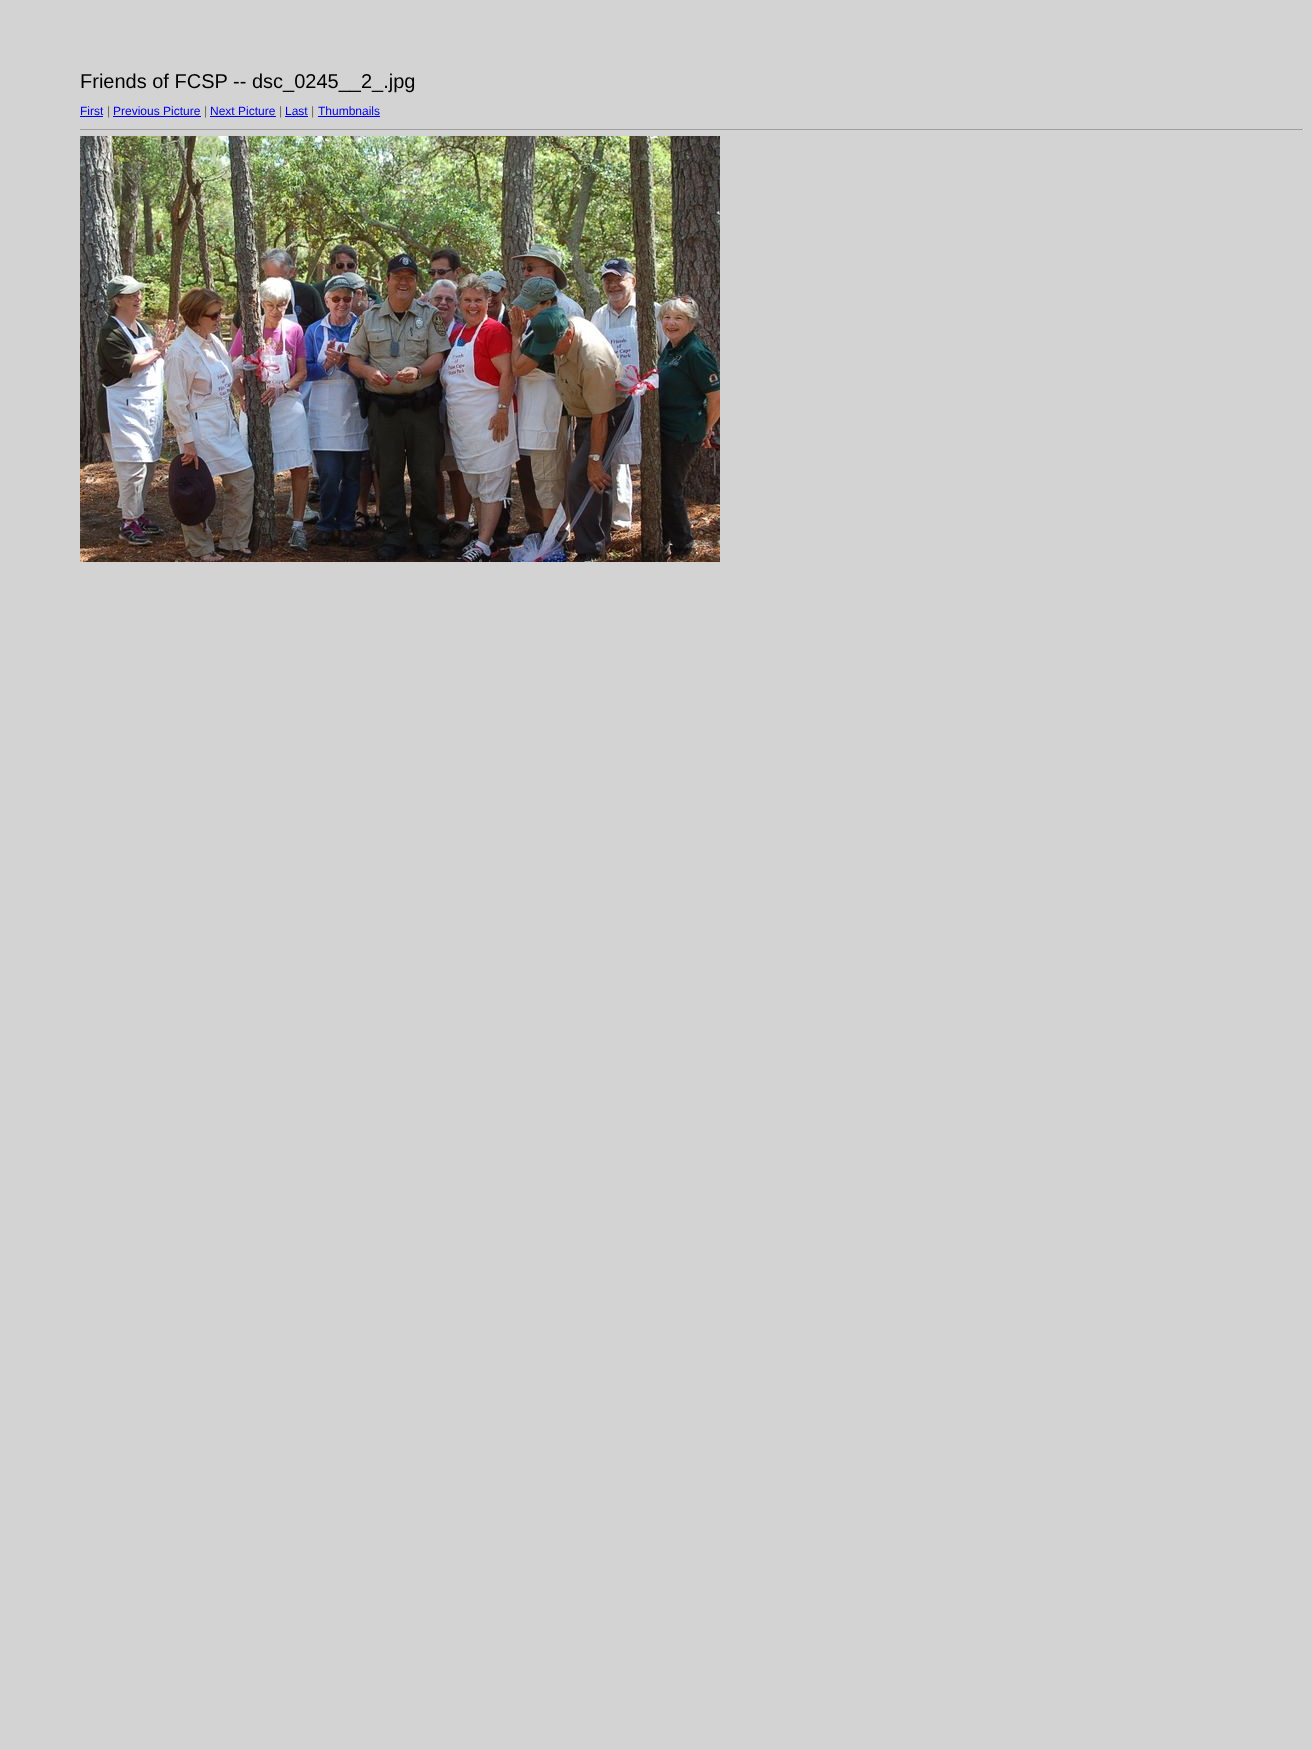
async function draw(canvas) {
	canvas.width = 1312;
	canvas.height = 1750;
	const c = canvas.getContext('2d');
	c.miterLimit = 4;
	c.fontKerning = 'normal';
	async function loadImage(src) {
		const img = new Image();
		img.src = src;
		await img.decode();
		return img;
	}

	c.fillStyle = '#d3d3d3';
	c.fillRect(0, 0, 1312, 1750);
	c.font = '20px Liberation Sans';
	c.fillStyle = '#000';
	c.fillText('Friends of FCSP -- dsc_0245__2_.jpg', 80, 88);
	c.font = '12px Liberation Sans';
	c.fillStyle = '#00e';
	c.fillText('First', 80, 115);
	c.fillRect(80, 116, 23, 1);
	c.fillStyle = '#666';
	c.fillText('|', 107, 115);
	c.fillStyle = '#00e';
	c.fillText('Previous Picture', 113, 115);
	c.fillRect(113, 116, 88, 1);
	c.fillStyle = '#666';
	c.fillText('|', 204, 115);
	c.fillStyle = '#00e';
	c.fillText('Next Picture', 210, 115);
	c.fillRect(210, 116, 66, 1);
	c.fillStyle = '#666';
	c.fillText('|', 279, 115);
	c.fillStyle = '#00e';
	c.fillText('Last', 285, 115);
	c.fillRect(285, 116, 23, 1);
	c.fillStyle = '#666';
	c.fillText('|', 311, 115);
	c.fillStyle = '#00e';
	c.fillText('Thumbnails', 318, 115);
	for (const [x, y, w, h, color] of [
		[318, 116, 62, 1, '#00e'],
		[80, 129, 1224, 1, '#9f9f9f'],
		[1303, 129, 1, 1, '#eee'],
	]) {
		c.fillStyle = color;
		c.fillRect(x, y, w, h);
	}
	c.drawImage(await loadImage('img1.png'), 80, 136, 640, 426);
}

draw(document.querySelector('canvas'));
